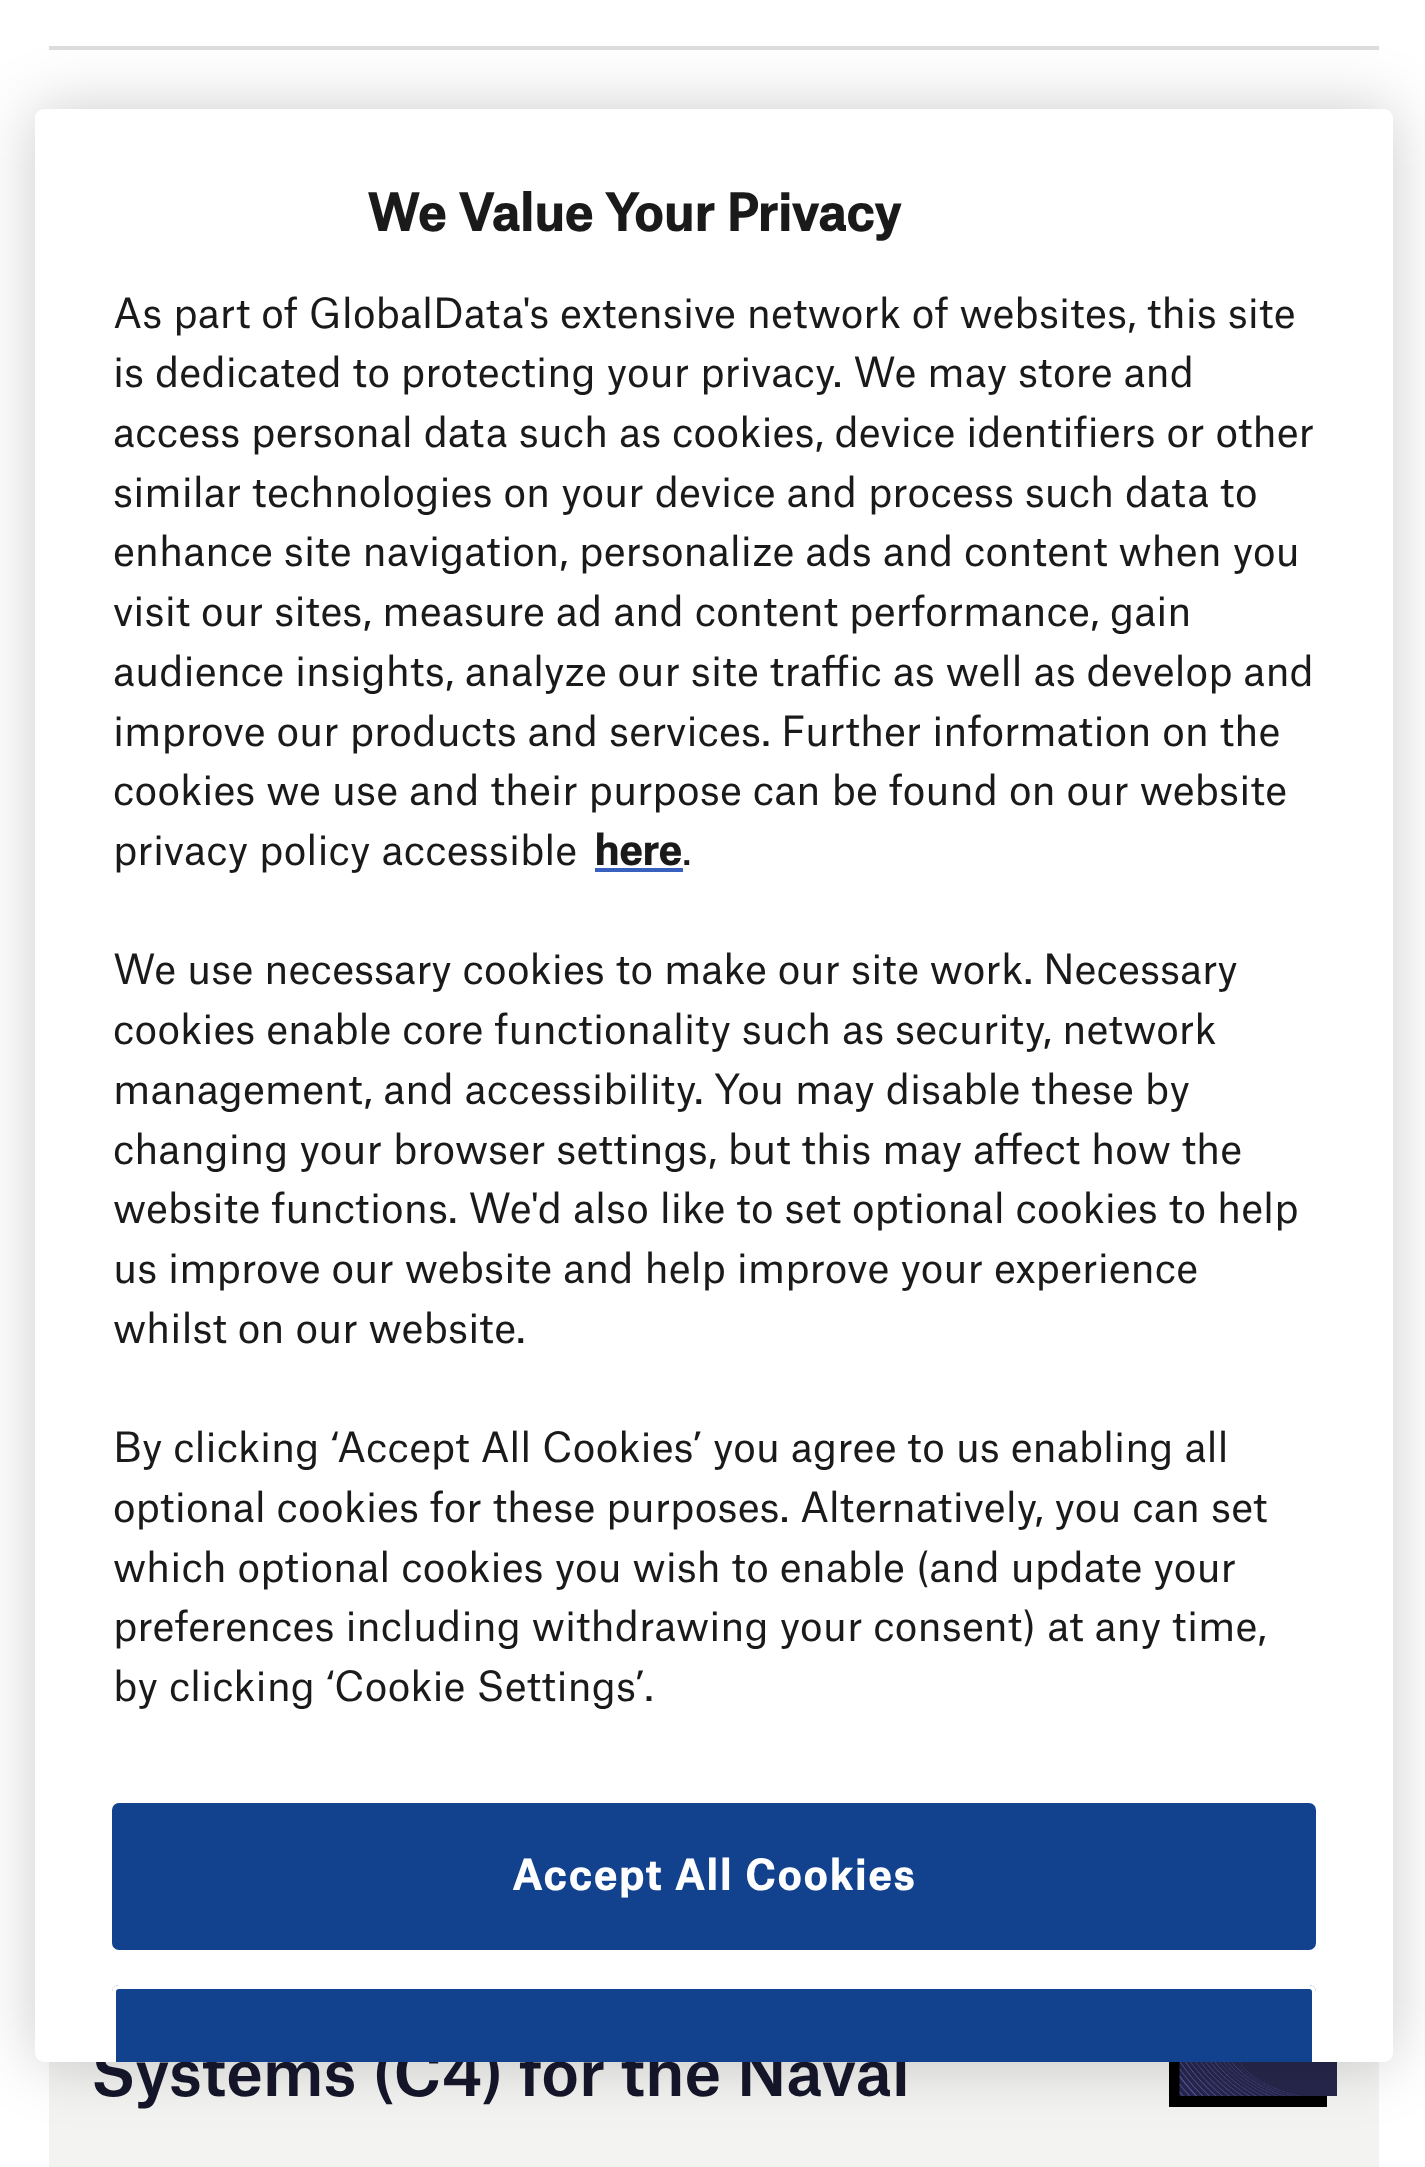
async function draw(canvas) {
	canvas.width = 1425;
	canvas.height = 2167;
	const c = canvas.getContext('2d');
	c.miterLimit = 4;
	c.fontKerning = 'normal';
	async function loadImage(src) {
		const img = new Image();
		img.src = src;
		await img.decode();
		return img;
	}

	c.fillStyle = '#fff';
	c.fillRect(0, 0, 1425, 2167);
	c.fillStyle = '#ddd';
	c.fillRect(49, 46, 1330, 4);
	c.fillStyle = '#f3f3f1';
	c.fillRect(49, 2062, 1330, 105);
	c.fillStyle = '#000';
	c.beginPath();
	c.moveTo(1169, 1887);
	c.lineTo(1169, 2107);
	c.lineTo(1327, 2107);
	c.lineTo(1327, 2096);
	c.lineTo(1180, 2096);
	c.lineTo(1180, 1887);
	c.closePath();
	c.fill();
	c.drawImage(await loadImage('img1.png'), 1179, 2062, 158, 34);
	c.fillStyle = '#00000033';
	c.filter = 'blur(31.5px)';
	c.beginPath();
	c.roundRect(35, 109, 1358, 1953, 9);
	c.fill();
	c.filter = 'none';
	c.font = '500 63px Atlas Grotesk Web';
	c.fillStyle = '#151529';
	c.fillText('Systems (C4) for the Naval', 91, 2096);
	c.fillStyle = '#fff';
	c.beginPath();
	c.roundRect(35, 109, 1358, 1953, 9);
	c.fill();
	c.font = 'bold 49px Atlas Grotesk Web';
	c.fillStyle = '#1a1a1a';
	c.fillText('We Value Your Privacy', 367, 231);
	c.font = '39.85px Atlas Grotesk Web';
	for (const [text, x, y] of [
		['As part of GlobalData\'s extensive network of websites, this site', 113, 328],
		['is dedicated to protecting your privacy. We may store and', 113, 387],
		['access personal data such as cookies, device identifiers or other', 113, 447],
		['similar technologies on your device and process such data to', 113, 507],
		['enhance site navigation, personalize ads and content when you', 113, 566],
		['visit our sites, measure ad and content performance, gain', 113, 626],
		['audience insights, analyze our site traffic as well as develop and', 113, 686],
		['improve our products and services.', 113, 746],
		['Further information on the', 781, 746],
		['cookies we use and their purpose can be found on our website', 113, 805],
		['privacy policy accessible', 113, 865],
	]) {
		c.fillText(text, x, y);
	}
	c.font = 'bold 39.85px Atlas Grotesk Web';
	c.fillText('here', 594, 865);
	c.fillStyle = '#3860be';
	c.fillRect(595, 868, 88, 4);
	c.font = '39.85px Atlas Grotesk Web';
	c.fillStyle = '#1a1a1a';
	for (const [text, x, y] of [
		['.', 682, 865],
		['We use necessary cookies to make our site work.', 113, 984],
		['Necessary', 1043, 984],
		['cookies enable core functionality such as security, network', 113, 1044],
		['management, and accessibility. You may disable these by', 113, 1104],
		['changing your browser settings, but this may affect how the', 113, 1164],
		['website functions. We\'d also like to set optional cookies to help', 113, 1223],
		['us improve our website and help improve your experience', 113, 1283],
		['whilst on our website.', 113, 1343],
		['By clicking ‘Accept All Cookies’ you agree to us enabling all', 113, 1462],
		['optional cookies for these purposes. Alternatively, you can set', 113, 1522],
		['which optional cookies you wish to enable (and update your', 113, 1582],
		['preferences including withdrawing your consent) at any time,', 113, 1641],
		['by clicking ‘Cookie Settings’.', 113, 1701],
	]) {
		c.fillText(text, x, y);
	}
	c.fillStyle = '#12418d';
	c.beginPath();
	c.roundRect(114, 1805, 1200, 143, 5);
	c.fill();
	c.strokeStyle = '#12418d';
	c.lineWidth = 4;
	c.stroke();
	c.letterSpacing = '2px';
	c.font = 'bold 39.85px Atlas Grotesk Web';
	c.fillStyle = '#fff';
	c.fillText('Accept All Cookies', 512, 1890);
	c.fillStyle = '#12418d';
	c.beginPath();
	c.roundRect(112, 1985, 1204, 77, [7, 7, 0, 0]);
	c.fill();
	c.fillStyle = '#fff';
	c.beginPath();
	c.moveTo(119, 1985);
	c.bezierCurveTo(115, 1985, 112, 1988, 112, 1992);
	c.lineTo(112, 2062);
	c.lineTo(116, 2062);
	c.lineTo(116, 1992);
	c.bezierCurveTo(116, 1990, 117, 1989, 119, 1989);
	c.lineTo(1309, 1989);
	c.bezierCurveTo(1311, 1989, 1312, 1990, 1312, 1992);
	c.lineTo(1312, 2062);
	c.lineTo(1316, 2062);
	c.lineTo(1316, 1992);
	c.bezierCurveTo(1316, 1988, 1313, 1985, 1309, 1985);
	c.closePath();
	c.fill();
}

draw(document.querySelector('canvas'));
